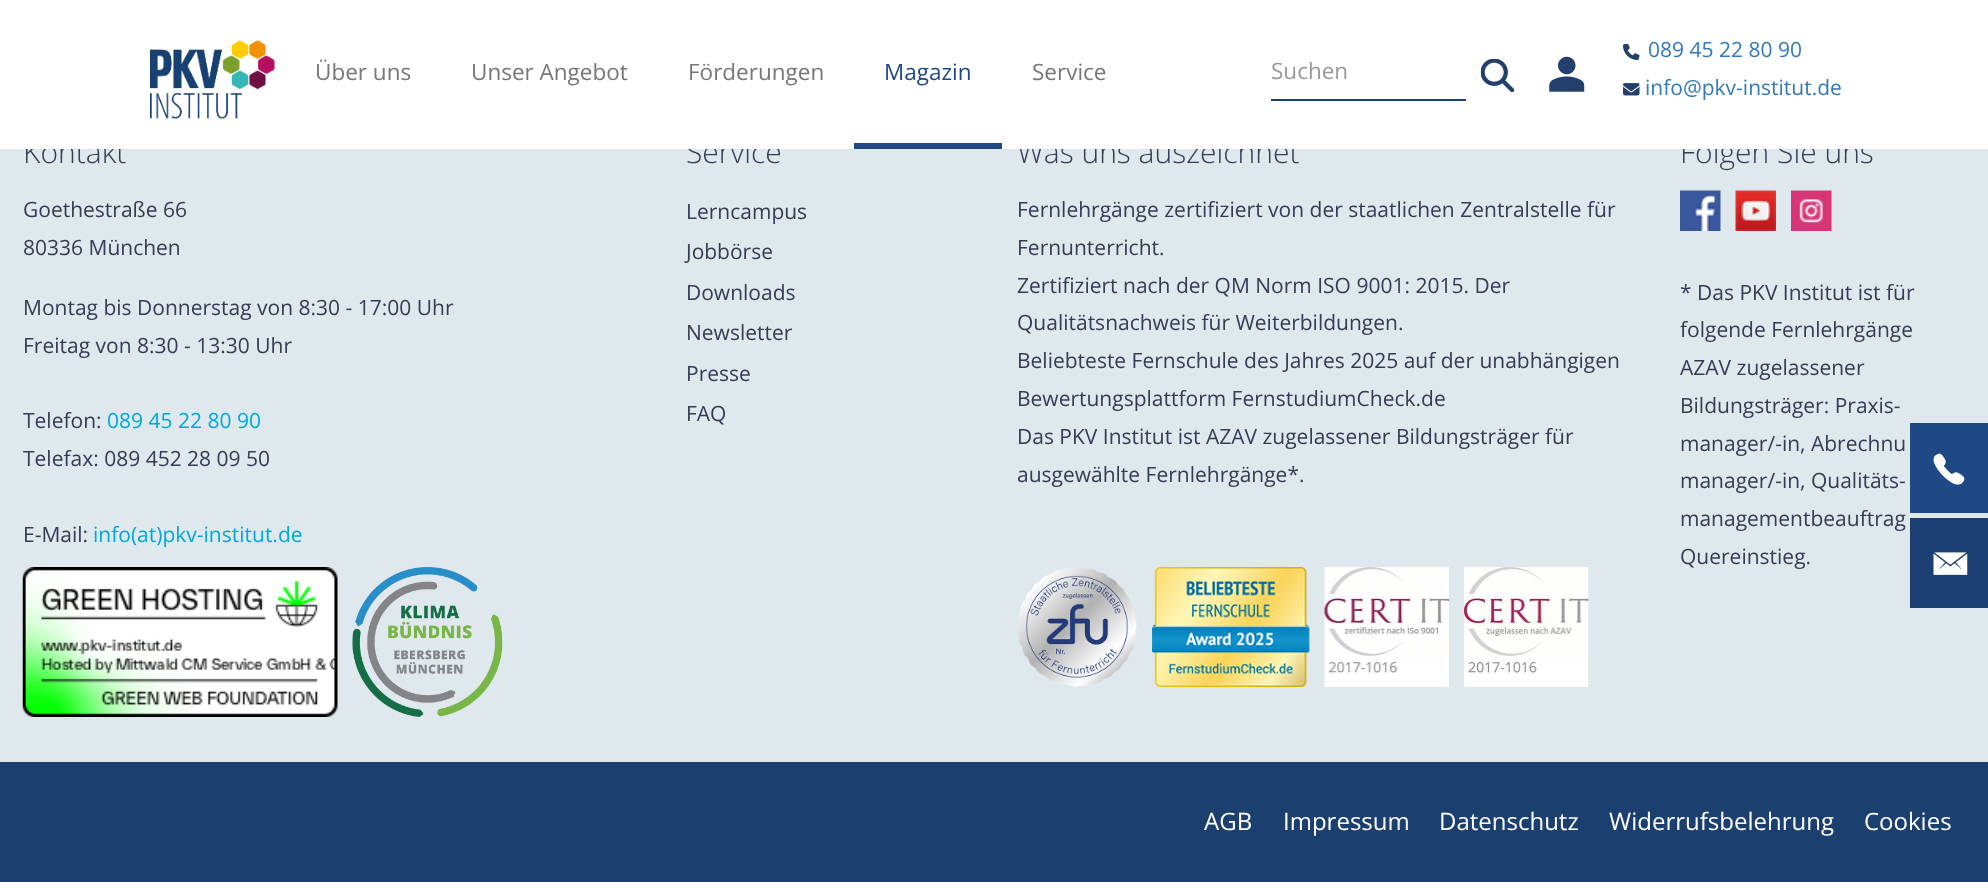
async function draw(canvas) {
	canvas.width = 1988;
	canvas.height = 882;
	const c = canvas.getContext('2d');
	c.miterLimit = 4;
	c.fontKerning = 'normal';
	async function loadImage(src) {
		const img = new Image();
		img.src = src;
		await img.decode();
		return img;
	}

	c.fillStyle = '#dee8ed';
	c.fillRect(0, 0, 1988, 882);
	c.font = '300 30px Open Sans';
	c.fillStyle = '#333e54';
	for (const [text, x, y] of [
		['Kontakt', 23, 163],
		['Service', 686, 163],
		['Was uns auszeichnet', 1017, 163],
		['Folgen Sie uns', 1680, 163],
	]) {
		c.fillText(text, x, y);
	}
	c.fillStyle = '#fff';
	c.fillRect(0, 0, 1988, 149);
	c.drawImage(await loadImage('img1.png'), 150, 40, 125, 79);
	c.font = '22.5px Open Sans';
	c.fillStyle = '#777';
	for (const [text, x, y] of [
		['Über uns', 315, 80],
		['Unser Angebot', 471, 80],
		['Förderungen', 688, 80],
	]) {
		c.fillText(text, x, y);
	}
	c.fillStyle = '#1f4985';
	c.fillRect(854, 143, 148, 6);
	c.fillText('Magazin', 884, 80);
	c.fillStyle = '#777';
	c.fillText('Service', 1032, 80);
	c.fillStyle = '#1c4070';
	c.fillRect(1271, 99, 195, 2);
	c.fillStyle = '#999';
	c.fillText('Suchen', 1271, 79);
	c.drawImage(await loadImage('img2.png'), 1481, 59, 34, 33);
	c.drawImage(await loadImage('img3.png'), 1549, 56, 36, 36);
	c.drawImage(await loadImage('img4.png'), 1623, 44, 17, 16);
	c.font = '21px Open Sans';
	c.fillStyle = '#337ab7';
	c.fillText('089 45 22 80 90', 1648, 57);
	c.drawImage(await loadImage('img5.png'), 1623, 83, 17, 13);
	c.fillText('info@pkv-institut.de', 1645, 95);
	c.fillStyle = '#333e54';
	for (const [text, x, y] of [
		['Goethestraße 66', 23, 217],
		['80336 München', 23, 255],
		['Montag bis Donnerstag von 8:30 - 17:00 Uhr', 23, 315],
		['Freitag von 8:30 - 13:30 Uhr', 23, 353],
		['Telefon:', 23, 428],
	]) {
		c.fillText(text, x, y);
	}
	c.fillStyle = '#00a9d9';
	c.fillText('089 45 22 80 90', 107, 428);
	c.fillStyle = '#333e54';
	c.fillText('Telefax: 089 452 28 09 50', 23, 466);
	c.fillText('E-Mail:', 23, 542);
	c.fillStyle = '#00a9d9';
	c.fillText('info(at)pkv-institut.de', 93, 542);
	c.drawImage(await loadImage('img6.png'), 22, 567, 316, 150);
	c.drawImage(await loadImage('img7.png'), 352, 567, 151, 150);
	c.fillStyle = '#333e54';
	for (const [text, x, y] of [
		['Lerncampus', 686, 219],
		['Jobbörse', 686, 259],
		['Downloads', 686, 300],
		['Newsletter', 686, 340],
		['Presse', 686, 381],
		['FAQ', 686, 421],
		['Fernlehrgänge zertifiziert von der staatlichen Zentralstelle für', 1017, 217],
		['Fernunterricht.', 1017, 255],
		['Zertifiziert nach der QM Norm ISO 9001: 2015. Der', 1017, 293],
		['Qualitätsnachweis für Weiterbildungen.', 1017, 330],
		['Beliebteste Fernschule des Jahres 2025 auf der unabhängigen', 1017, 368],
		['Bewertungsplattform FernstudiumCheck.de', 1017, 406],
		['Das PKV Institut ist AZAV zugelassener Bildungsträger für', 1017, 444],
		['ausgewählte Fernlehrgänge*.', 1017, 482],
	]) {
		c.fillText(text, x, y);
	}
	c.drawImage(await loadImage('img8.png'), 1017, 567, 120, 120);
	c.drawImage(await loadImage('img9.png'), 1152, 567, 158, 120);
	c.drawImage(await loadImage('img10.png'), 1324, 567, 125, 120);
	c.drawImage(await loadImage('img11.png'), 1464, 567, 125, 120);
	c.drawImage(await loadImage('img12.png'), 1680, 190, 41, 41);
	c.drawImage(await loadImage('img13.png'), 1735, 190, 41, 41);
	c.drawImage(await loadImage('img14.png'), 1791, 190, 41, 41);
	for (const [text, x, y] of [
		['* Das PKV Institut ist für', 1680, 300],
		['folgende Fernlehrgänge', 1680, 337],
		['AZAV zugelassener', 1680, 375],
		['Bildungsträger: Praxis-', 1680, 413],
		['manager/-in, Abrechnu', 1680, 451],
		['manager/-in, Qualitäts-', 1680, 488],
		['managementbeauftrag', 1680, 526],
		['Quereinstieg.', 1680, 564],
	]) {
		c.fillText(text, x, y);
	}
	c.fillStyle = '#1b3f6f';
	c.fillRect(0, 762, 1988, 120);
	c.font = '24px Open Sans';
	c.fillStyle = '#fff';
	for (const [text, x, y] of [
		['AGB', 1204, 830],
		['Impressum', 1283, 830],
		['Datenschutz', 1439, 830],
		['Widerrufsbelehrung', 1609, 830],
		['Cookies', 1864, 830],
	]) {
		c.fillText(text, x, y);
	}
	c.fillStyle = '#1f4985';
	c.fillRect(1910, 423, 78, 90);
	c.drawImage(await loadImage('img15.png'), 1933, 453, 32, 32);
	c.fillStyle = '#1b3e73';
	c.fillRect(1910, 518, 78, 90);
	c.drawImage(await loadImage('img16.png'), 1933, 552, 35, 23);
}

draw(document.querySelector('canvas'));
